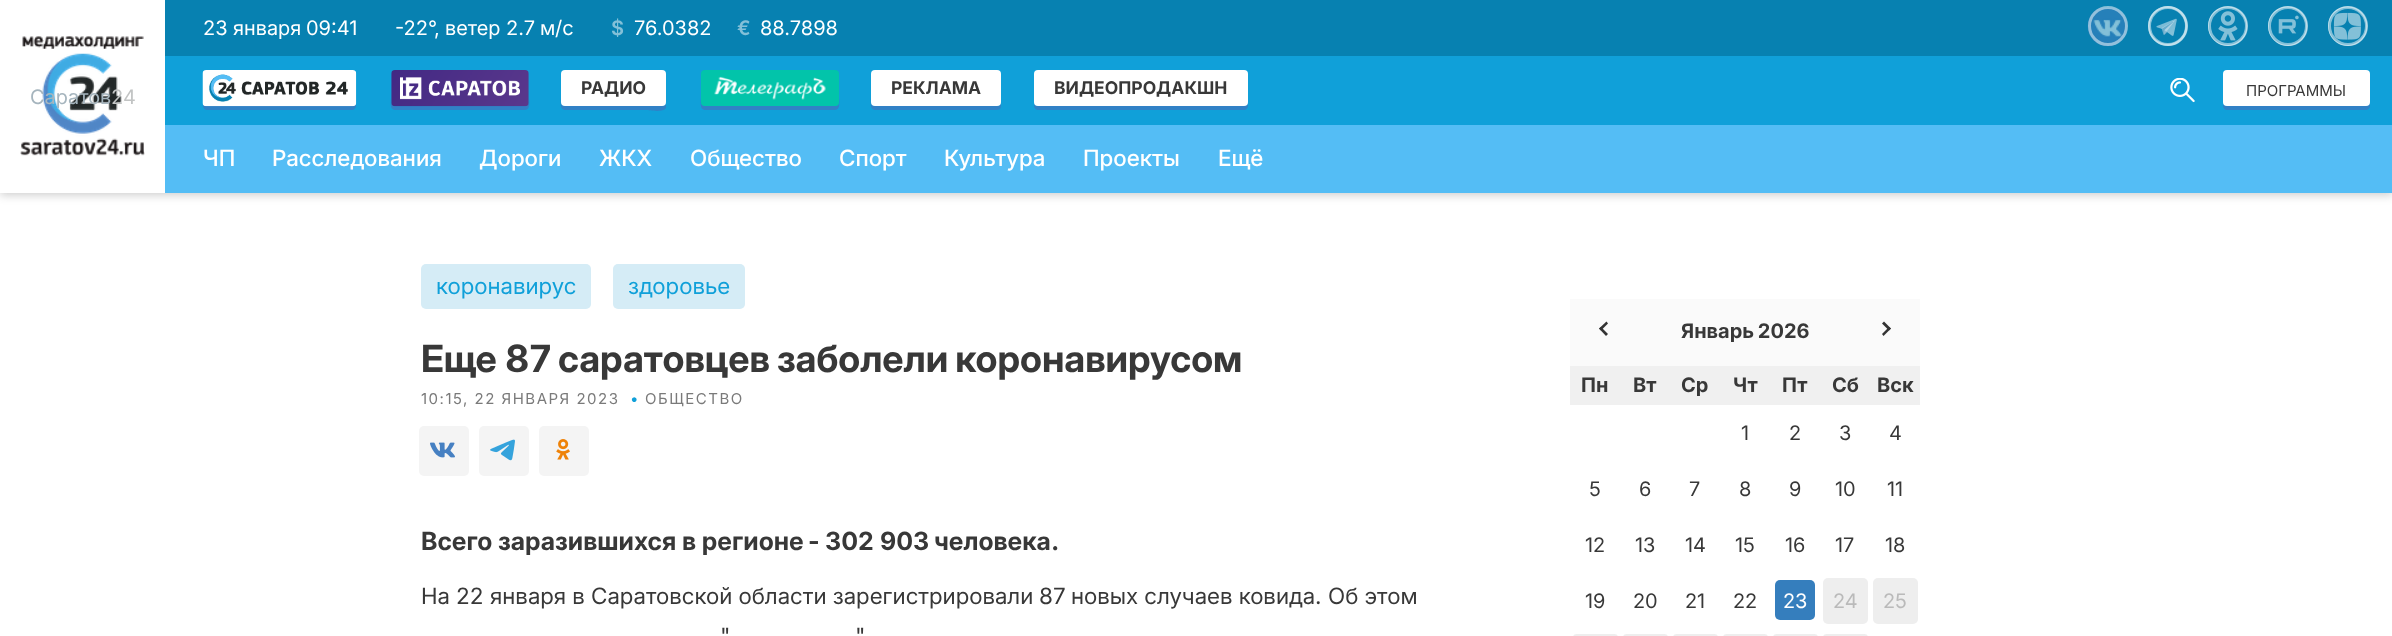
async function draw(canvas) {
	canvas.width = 2392;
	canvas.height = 636;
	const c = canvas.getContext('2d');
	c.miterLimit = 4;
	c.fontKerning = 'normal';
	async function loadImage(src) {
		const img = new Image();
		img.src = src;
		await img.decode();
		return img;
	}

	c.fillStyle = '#fff';
	c.fillRect(0, 0, 2392, 636);
	c.fillStyle = '#00000033';
	c.filter = 'blur(5px)';
	c.beginPath();
	c.rect(0, 3, 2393, 192);
	c.fill();
	c.filter = 'none';
	c.fillStyle = '#fff';
	c.fillRect(0, 0, 165, 193);
	c.drawImage(await loadImage('img1.png'), 20, 36, 125, 120);
	c.font = '20px "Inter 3"';
	c.fillStyle = '#a6b5be';
	c.fillText('Саратов', 30, 104);
	c.font = '20px "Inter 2"';
	c.fillStyle = '#c2c4c4';
	c.fillText('24', 111, 104);
	c.fillStyle = '#0781b1';
	c.fillRect(165, 0, 2227, 56);
	c.fillStyle = '#fff';
	c.fillText('23', 203, 35);
	c.font = '20px "Inter 3"';
	c.fillText('января', 233, 35);
	c.font = '20px "Inter 2"';
	c.fillText('09:41', 306, 35);
	c.fillText('-22°', 395, 35);
	c.font = '20px "Inter 3"';
	c.fillText('ветер', 445, 35);
	c.font = '20px "Inter 2"';
	c.fillText('2.7', 506, 35);
	c.font = '20px "Inter 3"';
	c.fillText('м', 540, 35);
	c.font = '20px "Inter 2"';
	c.fillText('/c', 555, 35);
	c.fillText(',', 434, 35);
	c.font = '600 20px Inter';
	c.fillStyle = '#83c0d8';
	c.fillText('$', 611, 35);
	c.font = '20px "Inter 2"';
	c.fillStyle = '#fff';
	c.fillText('76.0382', 634, 35);
	c.font = '600 20px Inter';
	c.fillStyle = '#83c0d8';
	c.fillText('€', 737, 35);
	c.font = '20px "Inter 2"';
	c.fillStyle = '#fff';
	c.fillText('88.7898', 760, 35);
	c.drawImage(await loadImage('img2.png'), 2087, 7, 41, 40);
	c.beginPath();
	c.arc(2108, 26, 18.5, 0, 2 * Math.PI);
	c.strokeStyle = '#ffffff80';
	c.lineWidth = 3;
	c.stroke();
	c.drawImage(await loadImage('img3.png'), 2148, 6, 40, 40);
	c.beginPath();
	c.arc(2168, 26, 18.5, 0, 2 * Math.PI);
	c.stroke();
	c.drawImage(await loadImage('img4.png'), 2208, 6, 40, 40);
	c.beginPath();
	c.arc(2228, 26, 18.5, 0, 2 * Math.PI);
	c.stroke();
	c.drawImage(await loadImage('img5.png'), 2268, 6, 40, 40);
	c.beginPath();
	c.arc(2288, 26, 18.5, 0, 2 * Math.PI);
	c.stroke();
	c.drawImage(await loadImage('img6.png'), 2328, 6, 40, 40);
	c.beginPath();
	c.arc(2348, 26, 18.5, 0, 2 * Math.PI);
	c.stroke();
	c.fillStyle = '#10a0d9';
	c.fillRect(165, 56, 2227, 69);
	c.fillStyle = '#3181c6';
	c.beginPath();
	c.moveTo(203, 104);
	c.lineTo(203, 106);
	c.bezierCurveTo(203, 108, 205, 110, 207, 110);
	c.lineTo(352, 110);
	c.bezierCurveTo(354, 110, 356, 108, 356, 106);
	c.lineTo(356, 104);
	c.lineTo(355, 105);
	c.lineTo(352, 106);
	c.lineTo(205, 106);
	c.closePath();
	c.fill();
	c.drawImage(await loadImage('img7.png'), 202, 70, 155, 37);
	c.beginPath();
	c.moveTo(391, 77);
	c.lineTo(391, 97);
	c.bezierCurveTo(391, 100, 389, 110, 395, 110);
	c.lineTo(525, 110);
	c.bezierCurveTo(531, 110, 529, 100, 529, 97);
	c.lineTo(529, 77);
	c.lineTo(529, 102);
	c.bezierCurveTo(529, 105, 527, 106, 525, 106);
	c.lineTo(395, 106);
	c.bezierCurveTo(393, 106, 391, 105, 391, 102);
	c.closePath();
	c.fill();
	c.drawImage(await loadImage('img8.png'), 391, 70, 138, 37);
	c.beginPath();
	c.moveTo(561, 77);
	c.lineTo(561, 97);
	c.bezierCurveTo(561, 100, 559, 110, 565, 110);
	c.lineTo(646, 110);
	c.bezierCurveTo(649, 110, 663, 113, 666, 108);
	c.lineTo(666, 104);
	c.bezierCurveTo(665, 105, 664, 106, 662, 106);
	c.lineTo(565, 106);
	c.bezierCurveTo(563, 106, 561, 105, 561, 102);
	c.closePath();
	c.fill();
	c.fillStyle = '#fff';
	c.beginPath();
	c.roundRect(561, 70, 105, 36, 4);
	c.fill();
	c.font = 'bold 17.5px "Inter 2"';
	c.fillStyle = '#383838';
	c.fillText('РАДИО', 581, 94);
	c.fillStyle = '#3181c6';
	c.beginPath();
	c.moveTo(701, 77);
	c.lineTo(701, 97);
	c.bezierCurveTo(701, 100, 699, 110, 705, 110);
	c.lineTo(835, 110);
	c.bezierCurveTo(841, 110, 839, 100, 839, 97);
	c.lineTo(839, 77);
	c.lineTo(839, 102);
	c.bezierCurveTo(839, 105, 837, 106, 835, 106);
	c.lineTo(705, 106);
	c.bezierCurveTo(703, 106, 701, 105, 701, 102);
	c.closePath();
	c.fill();
	c.fillStyle = '#02c4aa';
	c.beginPath();
	c.roundRect(701, 70, 138, 36, 4);
	c.fill();
	c.drawImage(await loadImage('img9.png'), 714, 76, 112, 24);
	c.fillStyle = '#3181c6';
	c.beginPath();
	c.moveTo(871, 77);
	c.lineTo(871, 97);
	c.bezierCurveTo(871, 100, 869, 110, 875, 110);
	c.lineTo(997, 110);
	c.bezierCurveTo(1001, 110, 1001, 107, 1001, 104);
	c.bezierCurveTo(1000, 105, 999, 106, 998, 106);
	c.lineTo(875, 106);
	c.bezierCurveTo(873, 106, 871, 105, 871, 102);
	c.closePath();
	c.fill();
	c.fillStyle = '#fff';
	c.beginPath();
	c.roundRect(871, 70, 130, 36, 4);
	c.fill();
	c.fillStyle = '#383838';
	c.fillText('РЕКЛАМА', 891, 94);
	c.fillStyle = '#3181c6';
	c.beginPath();
	c.moveTo(1034, 104);
	c.lineTo(1034, 106);
	c.bezierCurveTo(1034, 108, 1036, 110, 1038, 110);
	c.lineTo(1244, 110);
	c.bezierCurveTo(1246, 110, 1248, 108, 1248, 106);
	c.lineTo(1248, 78);
	c.lineTo(1248, 76);
	c.lineTo(1248, 102);
	c.bezierCurveTo(1248, 105, 1246, 106, 1244, 106);
	c.lineTo(1038, 106);
	c.bezierCurveTo(1036, 106, 1035, 105, 1034, 104);
	c.closePath();
	c.fill();
	c.fillStyle = '#fff';
	c.beginPath();
	c.roundRect(1034, 70, 214, 36, 4);
	c.fill();
	c.fillStyle = '#383838';
	c.fillText('ВИДЕОПРОДАКШН', 1054, 94);
	c.drawImage(await loadImage('img10.png'), 2170, 78, 25, 25);
	c.fillStyle = '#3181c6';
	c.beginPath();
	c.moveTo(2223, 104);
	c.lineTo(2223, 106);
	c.bezierCurveTo(2223, 108, 2225, 110, 2227, 110);
	c.lineTo(2366, 110);
	c.bezierCurveTo(2368, 110, 2370, 108, 2370, 106);
	c.lineTo(2370, 102);
	c.bezierCurveTo(2370, 105, 2368, 106, 2366, 106);
	c.lineTo(2226, 106);
	c.bezierCurveTo(2225, 106, 2224, 105, 2223, 104);
	c.closePath();
	c.fill();
	c.fillStyle = '#fff';
	c.beginPath();
	c.roundRect(2223, 70, 147, 36, 4);
	c.fill();
	c.font = '15px "Inter 2"';
	c.fillStyle = '#383838';
	c.fillText('ПРОГРАММЫ', 2246, 96);
	c.fillStyle = '#54bdf5';
	c.fillRect(165, 125, 2227, 68);
	c.font = '500 22.5px Inter';
	c.fillStyle = '#fff';
	for (const [text, x, y] of [
		['ЧП', 203, 166],
		['Расследования', 272, 166],
		['Дороги', 479, 166],
		['ЖКХ', 599, 166],
		['Общество', 690, 166],
		['Спорт', 839, 166],
		['Культура', 944, 166],
		['Проекты', 1083, 166],
		['Ещё', 1218, 166],
	]) {
		c.fillText(text, x, y);
	}
	c.fillStyle = '#d5ecf6';
	c.beginPath();
	c.roundRect(421, 264, 170, 45, 5);
	c.fill();
	c.font = '22.5px Inter';
	c.fillStyle = '#10a0d9';
	c.fillText('коронавирус', 436, 294);
	c.fillStyle = '#d5ecf6';
	c.beginPath();
	c.roundRect(613, 264, 132, 45, 5);
	c.fill();
	c.fillStyle = '#10a0d9';
	c.fillText('здоровье', 628, 294);
	c.font = 'bold 37.5px Inter';
	c.fillStyle = '#383838';
	c.fillText('Еще', 421, 372);
	c.font = 'bold 37.5px "Inter 2"';
	c.fillText('87', 505, 372);
	c.wordSpacing = '-1px';
	c.font = 'bold 37.5px Inter';
	c.fillText('саратовцев заболели коронавирусом', 558, 372);
	c.letterSpacing = '1.5px';
	c.wordSpacing = '0px';
	c.font = '15px "Inter 2"';
	c.fillStyle = '#7a7a7a';
	c.fillText('10:15, 22 ЯНВАРЯ 2023', 421, 404);
	c.fillStyle = '#10a0d9';
	c.fillText('•', 630, 404);
	c.fillStyle = '#7a7a7a';
	c.fillText('ОБЩЕСТВО', 645, 404);
	c.fillStyle = '#f4f4f4';
	c.beginPath();
	c.roundRect(419, 426, 50, 50, 5);
	c.fill();
	c.drawImage(await loadImage('img11.png'), 430, 442, 25, 16);
	c.beginPath();
	c.roundRect(479, 426, 50, 50, 5);
	c.fill();
	c.drawImage(await loadImage('img12.png'), 490, 439, 25, 22);
	c.beginPath();
	c.roundRect(539, 426, 50, 50, 5);
	c.fill();
	c.drawImage(await loadImage('img13.png'), 556, 439, 14, 21);
	c.letterSpacing = '0px';
	c.font = 'bold 25px "Inter 3"';
	c.fillStyle = '#383838';
	c.fillText('Всего заразившихся в регионе', 421, 550);
	c.font = 'bold 25px "Inter 2"';
	for (const [text, x, y] of [
		['-', 808, 550],
		['302', 825, 550],
		['903', 880, 550],
	]) {
		c.fillText(text, x, y);
	}
	c.font = 'bold 25px "Inter 3"';
	c.fillText('человека', 934, 550);
	c.font = 'bold 25px "Inter 2"';
	c.fillText('.', 1051, 550);
	c.font = '22.5px Inter';
	c.fillText('На', 421, 604);
	c.font = '22.5px "Inter 2"';
	c.fillText('22', 456, 604);
	c.font = '22.5px Inter';
	c.fillText('января в Саратовской области зарегистрировали', 490, 604);
	c.font = '22.5px "Inter 2"';
	c.fillText('87', 1039, 604);
	c.font = '22.5px Inter';
	c.fillText('новых случаев ковида', 1071, 604);
	c.font = '22.5px "Inter 2"';
	c.fillText('.', 1315, 604);
	c.font = '22.5px Inter';
	c.fillText('Об этом', 1328, 604);
	c.font = '22.5px "Inter 2"';
	c.fillText('"', 720, 644);
	c.fillText('"', 855, 644);
	c.fillStyle = '#fafafa';
	c.fillRect(1570, 299, 350, 67);
	c.fillStyle = '#333';
	c.beginPath();
	c.moveTo(1599, 328.5);
	c.lineTo(1606.5, 321.5);
	c.lineTo(1608, 323.5);
	c.lineTo(1601, 330.5);
	c.closePath();
	c.fill();
	c.beginPath();
	c.moveTo(1599, 328.5);
	c.lineTo(1601, 327);
	c.lineTo(1608, 334);
	c.lineTo(1606, 336);
	c.closePath();
	c.fill();
	c.wordSpacing = '-1px';
	c.font = 'bold 20px "Inter 2"';
	c.fillStyle = '#383838';
	c.fillText('Январь 2026', 1681, 338);
	c.fillStyle = '#333';
	c.beginPath();
	c.moveTo(1891, 328.5);
	c.lineTo(1883.5, 336);
	c.lineTo(1882, 334);
	c.lineTo(1889, 327);
	c.closePath();
	c.fill();
	c.beginPath();
	c.moveTo(1891, 328.5);
	c.lineTo(1889, 330.5);
	c.lineTo(1882, 323.5);
	c.lineTo(1884, 321.5);
	c.closePath();
	c.fill();
	c.fillStyle = '#f0f0f0';
	c.fillRect(1570, 366, 350, 39);
	c.wordSpacing = '0px';
	c.fillStyle = '#383838';
	for (const [text, x, y] of [
		['Пн', 1581, 392],
		['Вт', 1633, 392],
		['Ср', 1681, 392],
		['Чт', 1733, 392],
		['Пт', 1782, 392],
		['Сб', 1832, 392],
		['Вск', 1877, 392],
	]) {
		c.fillText(text, x, y);
	}
	c.font = '20px "Inter 3"';
	c.fillText('1', 1741, 440);
	c.fillText('2', 1789, 440);
	c.font = '20px "Inter 2"';
	for (const [text, x, y] of [
		['3', 1839, 440],
		['4', 1889, 440],
		['5', 1589, 496],
	]) {
		c.fillText(text, x, y);
	}
	c.font = '20px "Inter 3"';
	c.fillText('6', 1639, 496);
	c.fillText('7', 1689, 496);
	c.font = '20px "Inter 2"';
	c.fillText('8', 1739, 496);
	c.font = '20px "Inter 3"';
	for (const [text, x, y] of [
		['9', 1789, 496],
		['10', 1835, 496],
		['11', 1887, 496],
		['12', 1585, 552],
		['13', 1635, 552],
		['14', 1685, 552],
		['15', 1735, 552],
		['16', 1785, 552],
		['17', 1835, 552],
		['18', 1885, 552],
		['19', 1585, 608],
		['20', 1633, 608],
		['21', 1685, 608],
		['22', 1733, 608],
	]) {
		c.fillText(text, x, y);
	}
	c.fillStyle = '#357ebd';
	c.beginPath();
	c.roundRect(1775, 580, 40, 40, 5);
	c.fill();
	c.fillStyle = '#fff';
	c.fillText('23', 1783, 608);
	c.fillStyle = '#eee';
	c.beginPath();
	c.roundRect(1823, 578, 45, 46, 5);
	c.fill();
	c.fillStyle = '#bababa';
	c.fillText('24', 1833, 608);
	c.fillStyle = '#eee';
	c.beginPath();
	c.roundRect(1873, 578, 45, 46, 5);
	c.fill();
	c.fillStyle = '#bababa';
	c.fillText('25', 1883, 608);
	c.fillStyle = '#eee';
	c.beginPath();
	c.roundRect(1573, 634, 45, 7, 5);
	c.fill();
	c.beginPath();
	c.roundRect(1623, 634, 45, 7, 5);
	c.fill();
	c.beginPath();
	c.roundRect(1673, 634, 45, 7, 5);
	c.fill();
	c.beginPath();
	c.roundRect(1723, 634, 45, 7, 5);
	c.fill();
	c.beginPath();
	c.roundRect(1773, 634, 45, 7, 5);
	c.fill();
	c.beginPath();
	c.roundRect(1823, 634, 45, 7, 5);
	c.fill();
}

draw(document.querySelector('canvas'));
